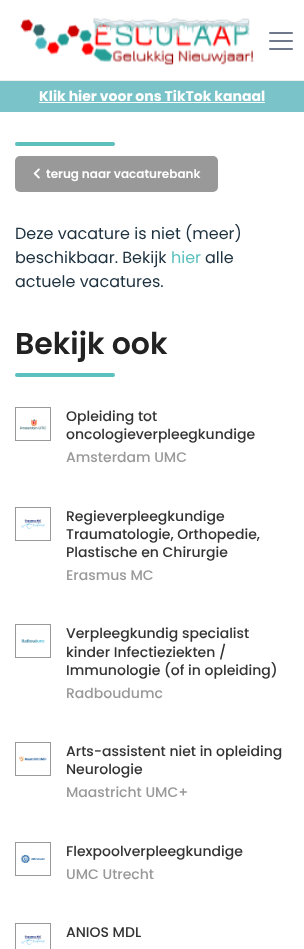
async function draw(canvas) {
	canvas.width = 304;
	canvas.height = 949;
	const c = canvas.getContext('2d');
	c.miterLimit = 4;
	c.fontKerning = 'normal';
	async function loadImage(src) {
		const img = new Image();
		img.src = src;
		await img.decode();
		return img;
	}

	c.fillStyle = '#fff';
	c.fillRect(0, 0, 304, 949);
	c.fillStyle = '#eee';
	c.fillRect(0, 80, 304, 1);
	c.drawImage(await loadImage('img1.png'), 20, 17, 234, 48);
	c.fillStyle = '#70798b';
	c.beginPath();
	c.roundRect(269, 48, 24, 2, 1);
	c.fill();
	c.beginPath();
	c.roundRect(269, 40, 24, 2, 1);
	c.fill();
	c.beginPath();
	c.roundRect(269, 32, 24, 2, 1);
	c.fill();
	c.fillStyle = '#79c3c9';
	c.fillRect(0, 81, 304, 31);
	c.font = 'bold 14px Poppins';
	c.fillStyle = '#fff';
	c.fillText('Klik hier voor ons TikTok kanaal', 39, 101);
	c.fillRect(39, 102, 226, 1);
	c.fillStyle = '#5bc0be';
	c.beginPath();
	c.roundRect(15, 142, 100, 4, 2);
	c.fill();
	c.fillStyle = '#999';
	c.beginPath();
	c.roundRect(15, 156, 203, 36, 5);
	c.fill();
	c.drawImage(await loadImage('img2.png'), 33, 168, 7, 11);
	c.font = '600 12px Poppins';
	c.fillStyle = '#fff';
	c.fillText('terug naar vacaturebank', 46, 178);
	c.font = '16px Poppins';
	c.fillStyle = '#1c303e';
	c.fillText('Deze vacature is niet (meer)', 15, 239);
	c.fillText('beschikbaar. Bekijk', 15, 263);
	c.fillStyle = '#5bc0be';
	c.fillText('hier', 171, 263);
	c.fillStyle = '#1c303e';
	c.fillText('alle', 205, 263);
	c.fillText('actuele vacatures.', 15, 287);
	c.font = '600 30px Poppins';
	c.fillStyle = '#222';
	c.fillText('Bekijk ook', 15, 354);
	c.fillStyle = '#5bc0be';
	c.beginPath();
	c.roundRect(15, 373, 100, 4, 2);
	c.fill();
	c.strokeStyle = '#999';
	c.strokeRect(15.5, 407.5, 35, 33);
	c.drawImage(await loadImage('img3.png'), 19, 419, 28, 11);
	c.font = '500 14px Poppins';
	c.fillStyle = '#333';
	c.fillText('Opleiding tot', 66, 421);
	c.fillText('oncologieverpleegkundige', 66, 439);
	c.fillStyle = '#999';
	c.fillText('Amsterdam UMC', 66, 462);
	c.strokeRect(15.5, 507.5, 35, 33);
	c.drawImage(await loadImage('img4.png'), 21, 519, 24, 10);
	c.fillStyle = '#333';
	for (const [text, x, y] of [
		['Regieverpleegkundige', 66, 521],
		['Traumatologie, Orthopedie,', 66, 539],
		['Plastische en Chirurgie', 66, 557],
	]) {
		c.fillText(text, x, y);
	}
	c.fillStyle = '#999';
	c.fillText('Erasmus MC', 66, 580);
	c.strokeRect(15.5, 624.5, 35, 33);
	c.drawImage(await loadImage('img5.png'), 21, 639, 24, 4);
	c.fillStyle = '#333';
	for (const [text, x, y] of [
		['Verpleegkundig specialist', 66, 638],
		['kinder Infectieziekten /', 66, 657],
		['Immunologie (of in opleiding)', 66, 675],
	]) {
		c.fillText(text, x, y);
	}
	c.fillStyle = '#999';
	c.fillText('Radboudumc', 66, 698);
	c.strokeRect(15.5, 742.5, 35, 33);
	c.drawImage(await loadImage('img6.png'), 19, 756, 28, 6);
	c.fillStyle = '#333';
	c.fillText('Arts-assistent niet in opleiding', 66, 756);
	c.fillText('Neurologie', 66, 774);
	c.fillStyle = '#999';
	c.fillText('Maastricht UMC+', 66, 797);
	c.strokeRect(15.5, 842.5, 35, 33);
	c.drawImage(await loadImage('img7.png'), 20, 854, 25, 9);
	c.fillStyle = '#333';
	c.fillText('Flexpoolverpleegkundige', 66, 856);
	c.fillStyle = '#999';
	c.fillText('UMC Utrecht', 66, 879);
	c.strokeRect(15.5, 923.5, 35, 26);
	c.drawImage(await loadImage('img4.png'), 21, 935, 24, 10);
	c.fillStyle = '#333';
	c.fillText('ANIOS MDL', 66, 937);
}

draw(document.querySelector('canvas'));
